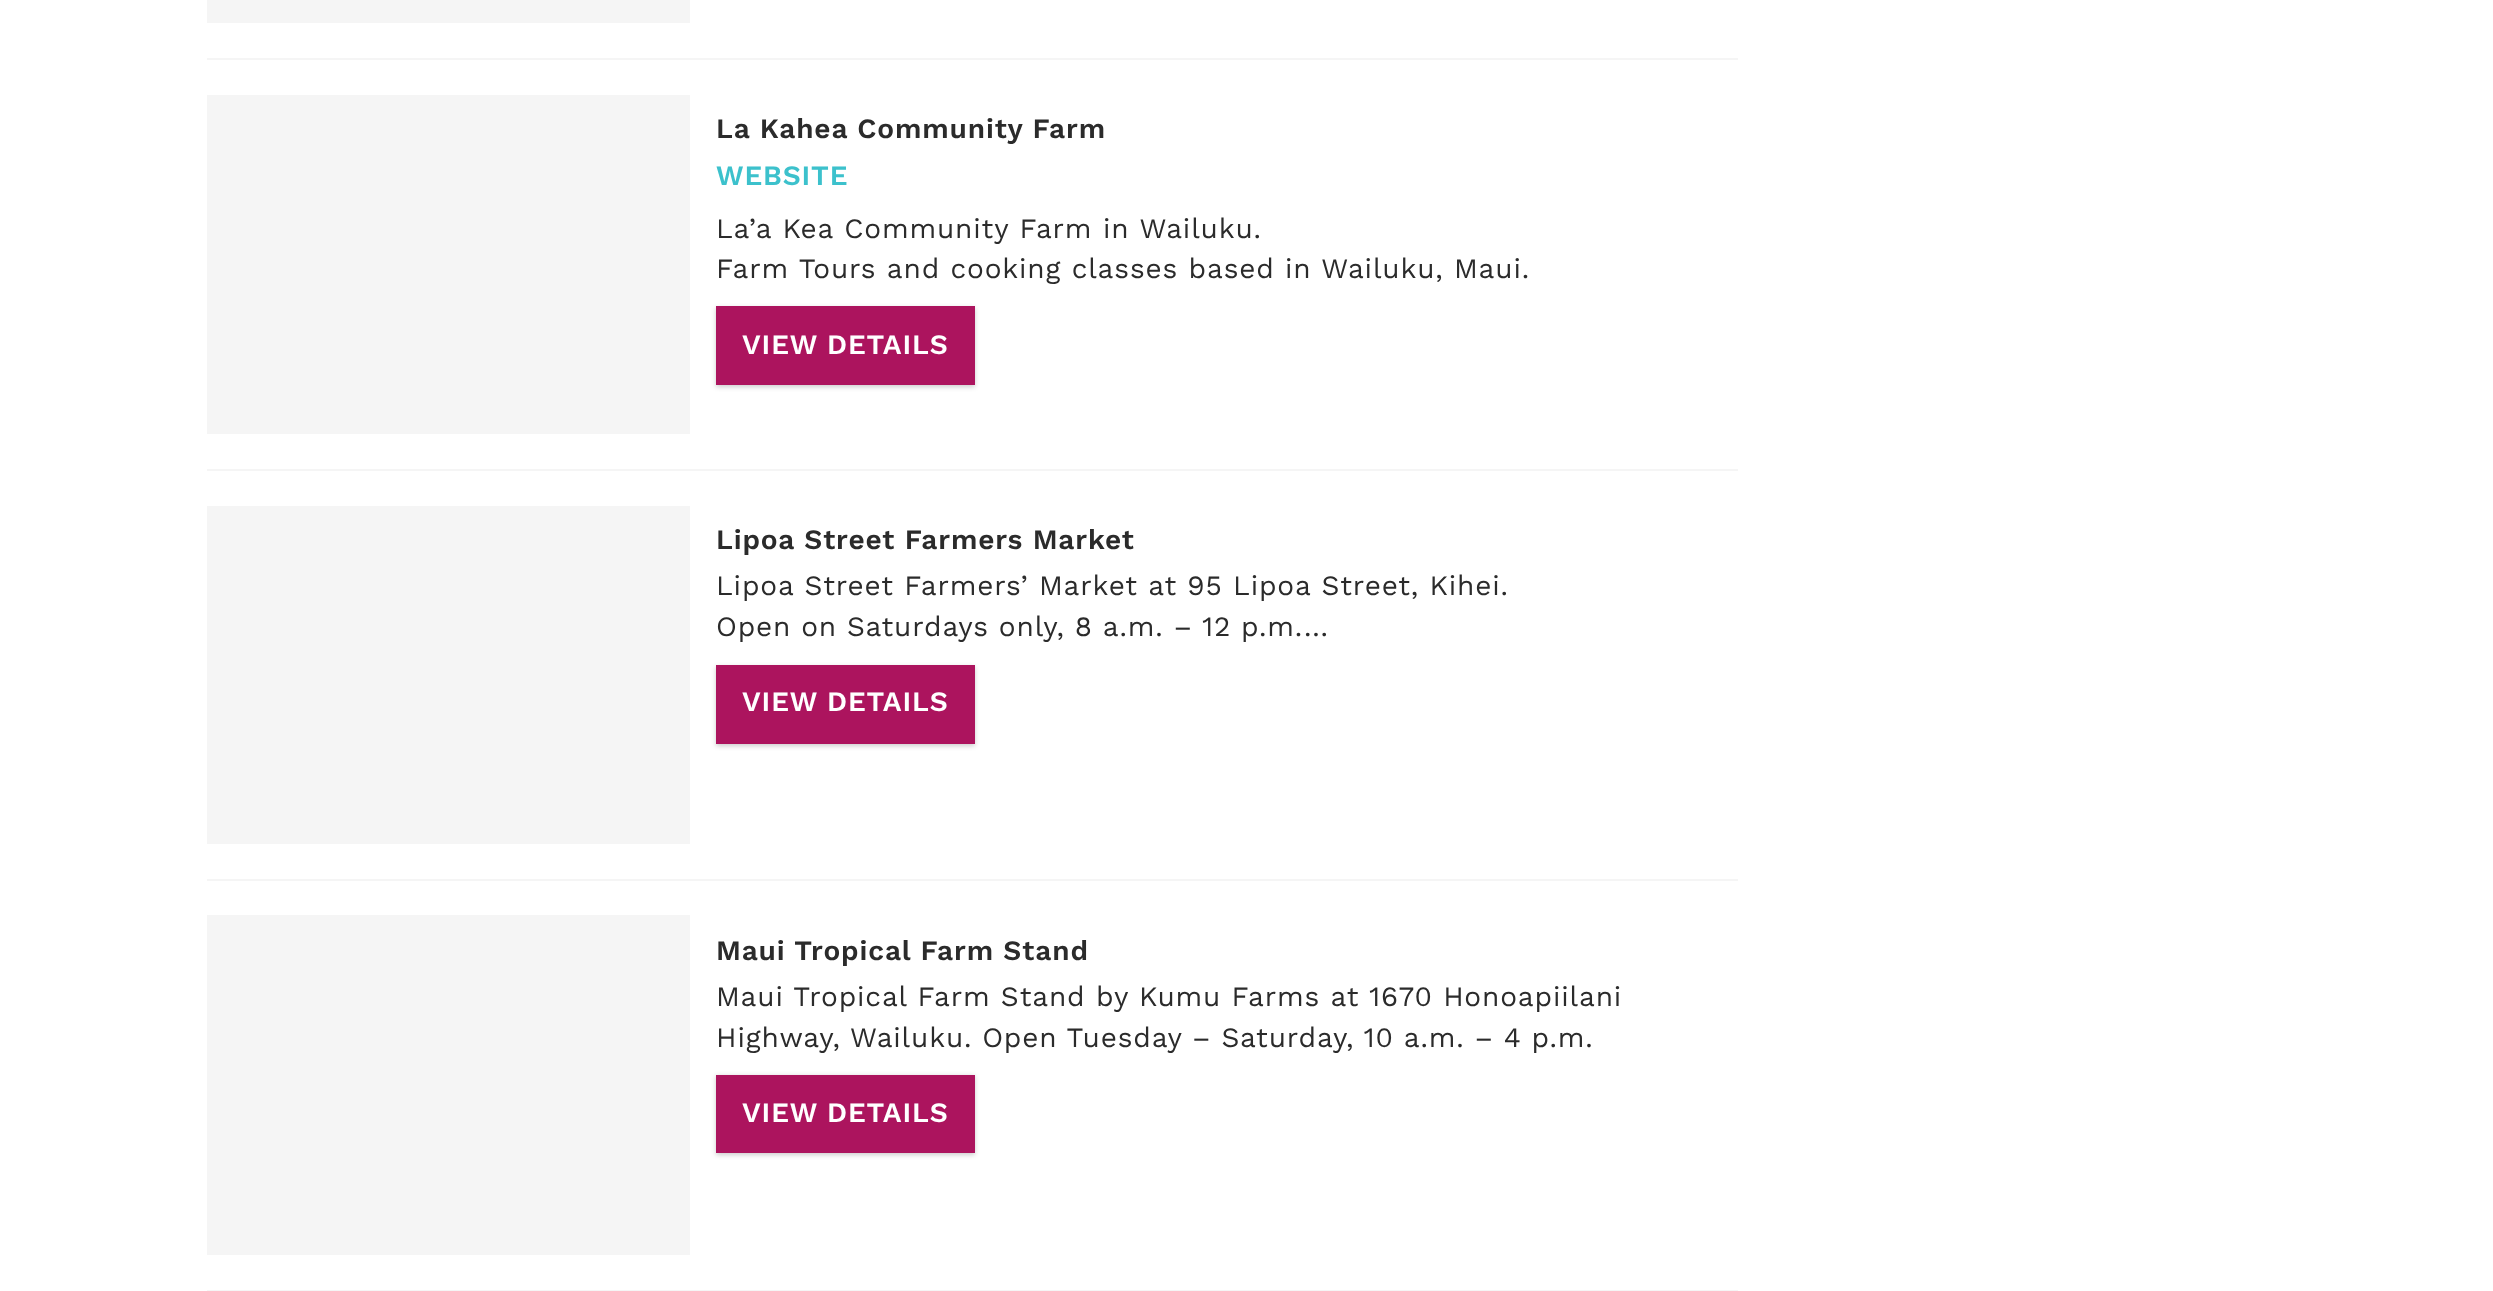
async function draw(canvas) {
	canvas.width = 2493;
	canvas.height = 1291;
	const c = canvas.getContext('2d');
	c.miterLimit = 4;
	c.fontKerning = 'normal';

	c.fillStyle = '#fff';
	c.fillRect(0, 0, 2493, 1291);
	for (const [x, y, w, h, color] of [
		[207, 58, 1531, 2, '#f5f5f5'],
		[207, 0, 483, 23, '#f5f5f5'],
		[207, 469, 1531, 2, '#f5f5f5'],
		[207, 95, 483, 339, '#f5f5f5'],
	]) {
		c.fillStyle = color;
		c.fillRect(x, y, w, h);
	}
	c.letterSpacing = '0.85px';
	c.font = '600 28px Work Sans';
	c.fillStyle = '#2b2b2b';
	c.fillText('La Kahea Community Farm', 716, 138);
	c.fillStyle = '#3cc1cc';
	c.fillText('WEBSITE', 716, 185);
	c.wordSpacing = '0.25px';
	c.font = '28px Work Sans';
	c.fillStyle = '#2b2b2b';
	c.fillText('La’a Kea Community Farm in Wailuku.', 716, 238);
	c.wordSpacing = '0px';
	c.fillText('Farm Tours and cooking classes based in Wailuku, Maui.', 716, 278);
	c.fillStyle = '#00000033';
	c.filter = 'blur(2.5px)';
	c.beginPath();
	c.rect(716, 308, 259, 79);
	c.fill();
	c.filter = 'none';
	c.fillStyle = '#ac145e';
	c.fillRect(716, 306, 259, 79);
	c.font = '600 28px Work Sans';
	c.fillStyle = '#fff';
	c.fillText('VIEW DETAILS', 742, 354);
	c.fillStyle = '#f5f5f5';
	c.fillRect(207, 879, 1531, 2);
	c.fillRect(207, 506, 483, 338);
	c.fillStyle = '#2b2b2b';
	c.fillText('Lipoa Street Farmers Market', 716, 549);
	c.font = '28px Work Sans';
	c.fillText('Lipoa Street Farmers’ Market at 95 Lipoa Street, Kihei.', 716, 595);
	c.wordSpacing = '-0.5px';
	c.fillText('Open on Saturdays only, 8 a.m. – 12 p.m.', 716, 636);
	c.wordSpacing = '0px';
	c.fillText('...', 1304, 636);
	c.fillStyle = '#00000033';
	c.filter = 'blur(2.5px)';
	c.beginPath();
	c.rect(716, 667, 259, 79);
	c.fill();
	c.filter = 'none';
	c.fillStyle = '#ac145e';
	c.fillRect(716, 665, 259, 79);
	c.font = '600 28px Work Sans';
	c.fillStyle = '#fff';
	c.fillText('VIEW DETAILS', 742, 711);
	c.fillStyle = '#f5f5f5';
	c.fillRect(207, 1290, 1531, 1);
	c.fillRect(207, 915, 483, 340);
	c.fillStyle = '#2b2b2b';
	c.fillText('Maui Tropical Farm Stand', 716, 960);
	c.font = '28px Work Sans';
	c.fillText('Maui Tropical Farm Stand by Kumu Farms at 1670 Honoapiilani', 716, 1006);
	c.wordSpacing = '-0.5px';
	c.fillText('Highway, Wailuku. Open Tuesday – Saturday, 10 a.m. – 4 p.m.', 716, 1047);
	c.fillStyle = '#00000033';
	c.filter = 'blur(2.5px)';
	c.beginPath();
	c.rect(716, 1076, 259, 79);
	c.fill();
	c.filter = 'none';
	c.fillStyle = '#ac145e';
	c.fillRect(716, 1075, 259, 78);
	c.wordSpacing = '0px';
	c.font = '600 28px Work Sans';
	c.fillStyle = '#fff';
	c.fillText('VIEW DETAILS', 742, 1122);
}

draw(document.querySelector('canvas'));
